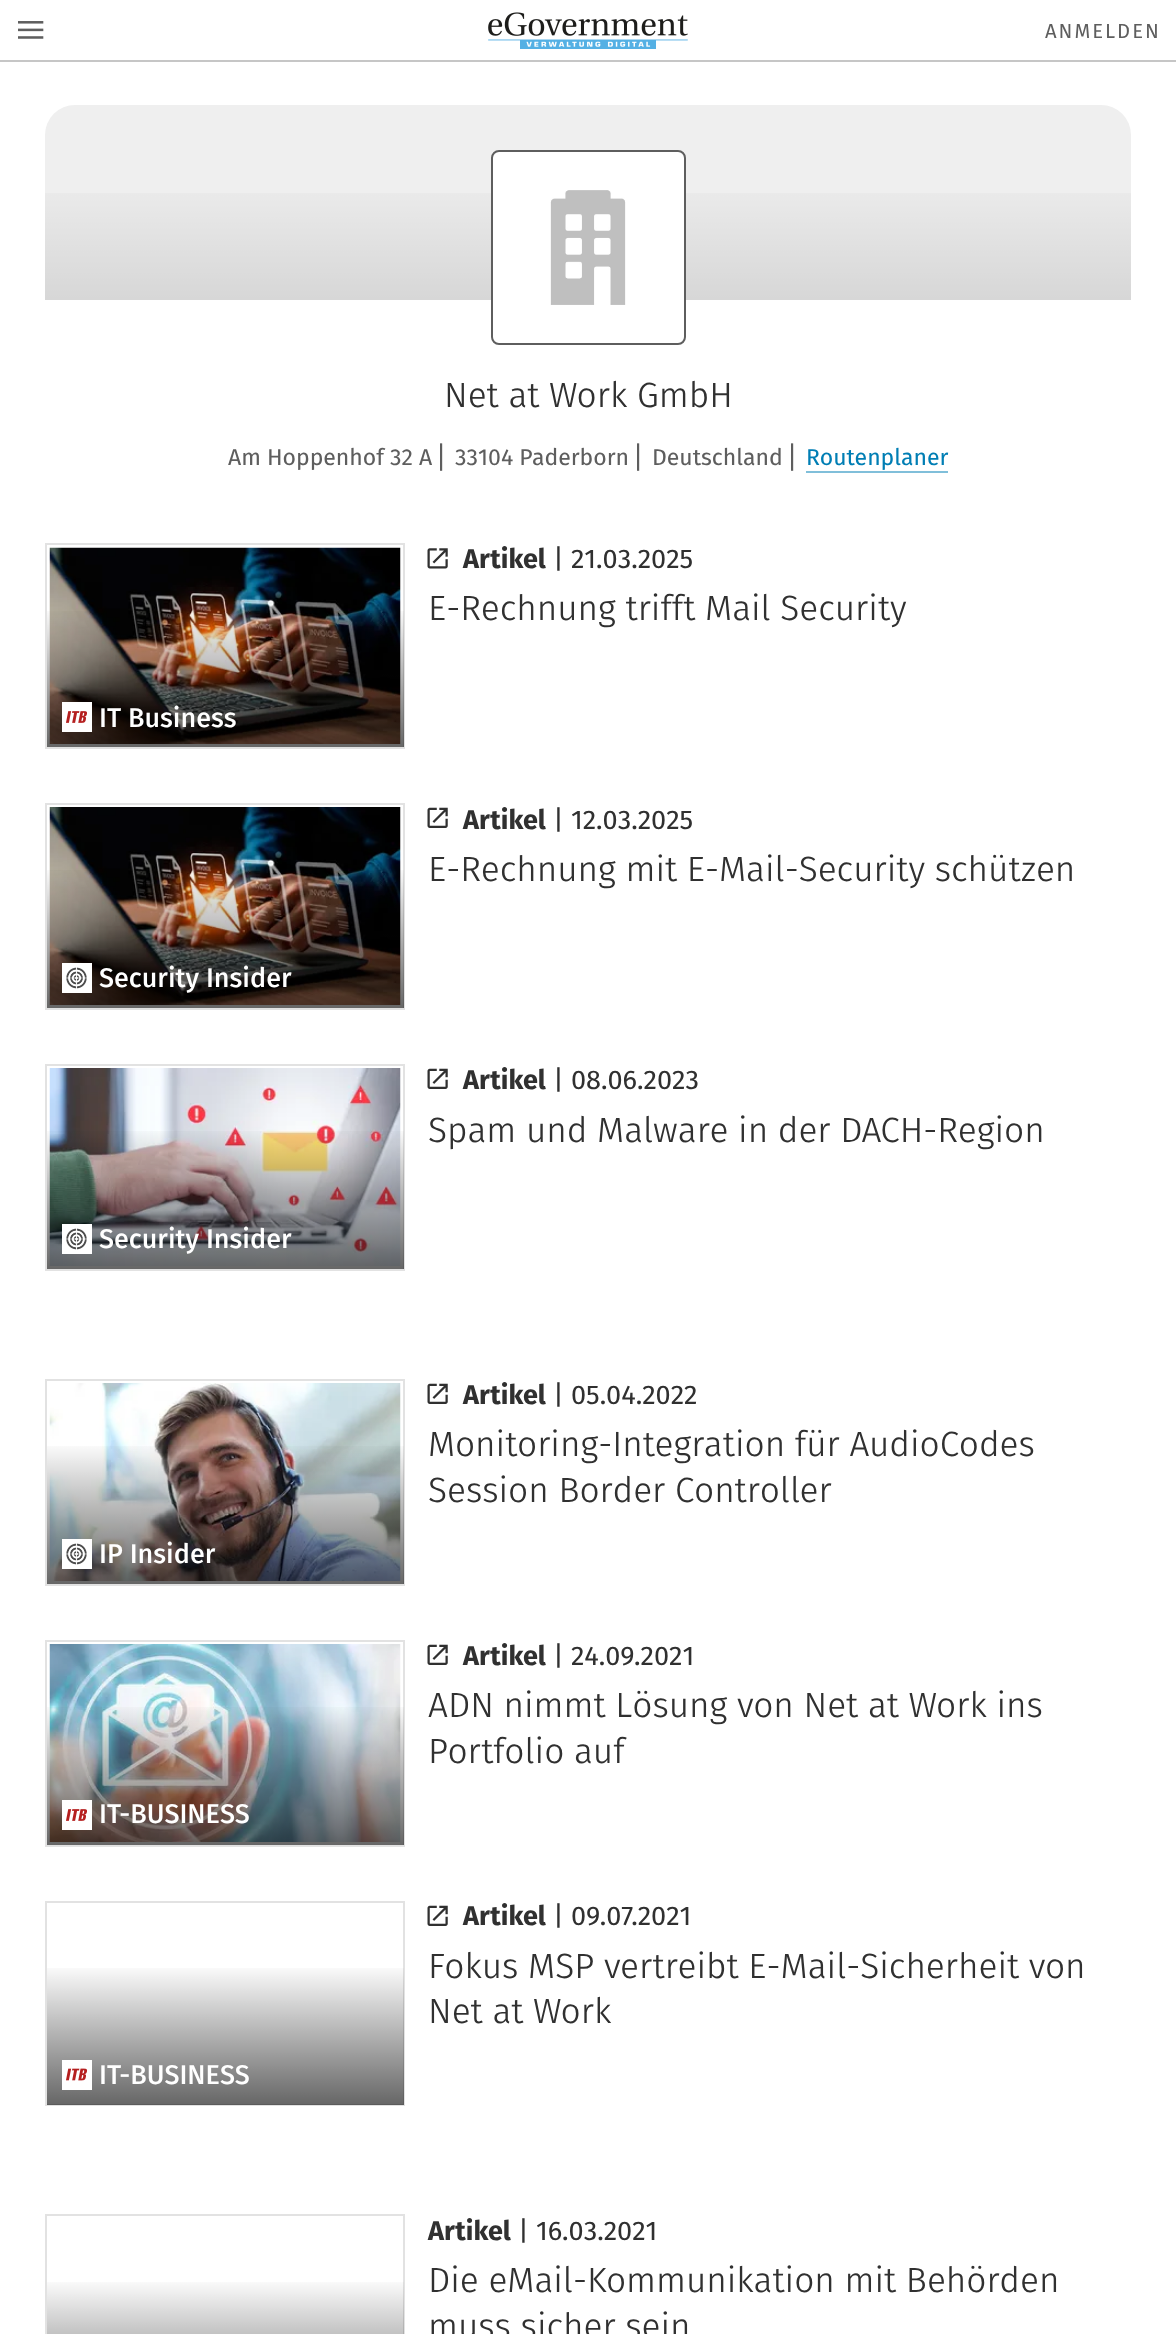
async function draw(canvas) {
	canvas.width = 1176;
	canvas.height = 2334;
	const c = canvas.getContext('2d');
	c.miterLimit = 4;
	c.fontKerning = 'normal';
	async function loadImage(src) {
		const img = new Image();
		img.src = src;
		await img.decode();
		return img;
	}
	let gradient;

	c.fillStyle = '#fff';
	c.fillRect(0, 0, 1176, 2334);
	c.fillStyle = '#c6c6c6';
	c.fillRect(0, 60, 1176, 2);
	c.drawImage(await loadImage('img1.png'), 18, 21, 26, 18);
	c.drawImage(await loadImage('img2.png'), 488, 12, 200, 37);
	c.letterSpacing = '2px';
	c.font = '20.25px "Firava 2"';
	c.fillStyle = '#5e5e5e';
	c.fillText('ANMELDEN', 1045, 38);
	c.fillStyle = '#efefef';
	c.beginPath();
	c.roundRect(45, 105, 1086, 195, [30, 30, 0, 0]);
	c.fill();
	gradient = c.createLinearGradient(588, 300, 588, 105);
	gradient.addColorStop(0, '#0000001a');
	gradient.addColorStop(0.7, '#00000000');
	c.fillStyle = gradient;
	c.fillRect(45, 193, 1086, 107);
	c.fillStyle = '#fff';
	c.beginPath();
	c.roundRect(492, 151, 193, 193, 7);
	c.fill();
	c.strokeStyle = '#5e5e5e';
	c.lineWidth = 2;
	c.stroke();
	c.drawImage(await loadImage('img3.png'), 550, 190, 76, 115);
	c.letterSpacing = '0px';
	c.font = '300 35.1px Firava';
	c.fillStyle = '#303030';
	c.fillText('Net at Work GmbH', 444, 407);
	c.font = '23px Firava';
	c.fillStyle = '#5e5e5e';
	c.fillText('Am Hoppenhof 32 A', 228, 465);
	c.font = '23px DejaVu Sans';
	c.fillText('⎢', 438, 465);
	c.font = '23px Firava';
	c.fillText('33104 Paderborn', 455, 465);
	c.font = '23px DejaVu Sans';
	c.fillText('⎢', 635, 465);
	c.font = '23px Firava';
	c.fillText('Deutschland', 652, 465);
	c.font = '23px DejaVu Sans';
	c.fillText('⎢', 789, 465);
	c.font = '23px Firava';
	c.fillStyle = '#007eb4';
	c.fillText('Routenplaner', 806, 465);
	c.fillStyle = '#80bfda';
	c.fillRect(806, 471, 142, 2);
	c.drawImage(await loadImage('img4.png'), 427, 548, 21, 21);
	c.font = 'bold 27px Firava';
	c.fillStyle = '#303030';
	c.fillText('Artikel', 463, 568);
	c.font = '27px Firava';
	c.fillText('| 21.03.2025', 553, 568);
	c.font = '300 35.1px Firava';
	c.fillText('E-Rechnung trifft Mail Security', 428, 620);
	c.strokeStyle = '#e2e2e2';
	c.strokeRect(46, 544, 358, 204);
	c.drawImage(await loadImage('img5.png'), 49, 547, 352, 197);
	gradient = c.createLinearGradient(225, 747, 225, 545);
	gradient.addColorStop(0, '#00000099');
	gradient.addColorStop(0.7, '#00000000');
	c.fillStyle = gradient;
	c.fillRect(47, 611, 357, 136);
	c.fillStyle = '#fff';
	c.fillRect(62, 702, 30, 30);
	c.drawImage(await loadImage('img6.png'), 66, 711, 21, 12);
	c.font = '500 27px Firava';
	c.fillText('IT Business', 99, 727);
	c.drawImage(await loadImage('img7.png'), 427, 807, 21, 21);
	c.font = 'bold 27px Firava';
	c.fillStyle = '#303030';
	c.fillText('Artikel', 463, 829);
	c.font = '27px Firava';
	c.fillText('| 12.03.2025', 553, 829);
	c.font = '300 35.1px Firava';
	c.fillText('E-Rechnung mit E-Mail-Security schützen', 428, 881);
	c.strokeRect(46, 804, 358, 205);
	c.drawImage(await loadImage('img8.png'), 49, 807, 352, 198);
	gradient = c.createLinearGradient(225, 1008, 225, 804);
	gradient.addColorStop(0, '#00000099');
	gradient.addColorStop(0.7, '#00000000');
	c.fillStyle = gradient;
	c.fillRect(47, 870, 357, 138);
	c.fillStyle = '#fff';
	c.fillRect(62, 963, 30, 30);
	c.drawImage(await loadImage('img9.png'), 66, 967, 21, 22);
	c.font = '500 27px Firava';
	c.fillText('Security Insider', 99, 987);
	c.drawImage(await loadImage('img7.png'), 427, 1068, 21, 21);
	c.font = 'bold 27px Firava';
	c.fillStyle = '#303030';
	c.fillText('Artikel', 463, 1089);
	c.font = '27px Firava';
	c.fillText('| 08.06.2023', 553, 1089);
	c.font = '300 35.1px Firava';
	c.fillText('Spam und Malware in der DACH-Region', 428, 1142);
	c.strokeRect(46, 1065, 358, 205);
	c.drawImage(await loadImage('img10.png'), 49, 1068, 352, 198);
	gradient = c.createLinearGradient(225, 1269, 225, 1065);
	gradient.addColorStop(0, '#00000099');
	gradient.addColorStop(0.7, '#00000000');
	c.fillStyle = gradient;
	c.fillRect(47, 1131, 357, 138);
	c.fillStyle = '#fff';
	c.fillRect(62, 1224, 30, 30);
	c.drawImage(await loadImage('img9.png'), 66, 1228, 21, 22);
	c.font = '500 27px Firava';
	c.fillText('Security Insider', 99, 1248);
	c.drawImage(await loadImage('img7.png'), 427, 1383, 21, 21);
	c.font = 'bold 27px Firava';
	c.fillStyle = '#303030';
	c.fillText('Artikel', 463, 1404);
	c.font = '27px Firava';
	c.fillText('| 05.04.2022', 553, 1404);
	c.font = '300 35.1px Firava';
	c.fillText('Monitoring-Integration für AudioCodes', 428, 1456);
	c.fillText('Session Border Controller', 428, 1502);
	c.strokeRect(46, 1380, 358, 205);
	c.drawImage(await loadImage('img11.png'), 49, 1383, 352, 198);
	gradient = c.createLinearGradient(225, 1584, 225, 1380);
	gradient.addColorStop(0, '#00000099');
	gradient.addColorStop(0.7, '#00000000');
	c.fillStyle = gradient;
	c.fillRect(47, 1446, 357, 138);
	c.fillStyle = '#fff';
	c.fillRect(62, 1539, 30, 30);
	c.drawImage(await loadImage('img9.png'), 66, 1543, 21, 22);
	c.font = '500 27px Firava';
	c.fillText('IP Insider', 99, 1563);
	c.drawImage(await loadImage('img7.png'), 427, 1644, 21, 21);
	c.font = 'bold 27px Firava';
	c.fillStyle = '#303030';
	c.fillText('Artikel', 463, 1665);
	c.font = '27px Firava';
	c.fillText('| 24.09.2021', 553, 1665);
	c.font = '300 35.1px Firava';
	c.fillText('ADN nimmt Lösung von Net at Work ins', 428, 1717);
	c.fillText('Portfolio auf', 428, 1763);
	c.strokeRect(46, 1641, 358, 205);
	c.drawImage(await loadImage('img12.png'), 49, 1644, 352, 198);
	gradient = c.createLinearGradient(225, 1845, 225, 1641);
	gradient.addColorStop(0, '#00000099');
	gradient.addColorStop(0.7, '#00000000');
	c.fillStyle = gradient;
	c.fillRect(47, 1707, 357, 138);
	c.fillStyle = '#fff';
	c.fillRect(62, 1800, 30, 30);
	c.drawImage(await loadImage('img6.png'), 66, 1809, 21, 12);
	c.font = '500 27px Firava';
	c.fillText('IT-BUSINESS', 99, 1823);
	c.drawImage(await loadImage('img7.png'), 427, 1905, 21, 21);
	c.font = 'bold 27px Firava';
	c.fillStyle = '#303030';
	c.fillText('Artikel', 463, 1925);
	c.font = '27px Firava';
	c.fillText('| 09.07.2021', 553, 1925);
	c.font = '300 35.1px Firava';
	c.fillText('Fokus MSP vertreibt E-Mail-Sicherheit von', 428, 1978);
	c.fillText('Net at Work', 428, 2023);
	c.strokeRect(46, 1902, 358, 203);
	gradient = c.createLinearGradient(225, 2105, 225, 1902);
	gradient.addColorStop(0, '#00000099');
	gradient.addColorStop(0.7, '#00000000');
	c.fillStyle = gradient;
	c.fillRect(47, 1968, 357, 137);
	c.fillStyle = '#fff';
	c.fillRect(62, 2060, 30, 30);
	c.drawImage(await loadImage('img13.png'), 66, 2068, 22, 13);
	c.font = '500 27px Firava';
	c.fillText('IT-BUSINESS', 99, 2084);
	c.strokeRect(46, 2215, 358, 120);
	gradient = c.createLinearGradient(225, 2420, 225, 2216);
	gradient.addColorStop(0, '#00000099');
	gradient.addColorStop(0.7, '#00000000');
	c.fillStyle = gradient;
	c.fillRect(47, 2282, 357, 52);
	c.font = 'bold 27px Firava';
	c.fillStyle = '#303030';
	c.fillText('Artikel', 428, 2240);
	c.font = '27px Firava';
	c.fillText('| 16.03.2021', 518, 2240);
	c.font = '300 35.1px Firava';
	c.fillText('Die eMail-Kommunikation mit Behörden', 428, 2292);
	c.fillText('muss sicher sein', 428, 2338);
}

draw(document.querySelector('canvas'));
